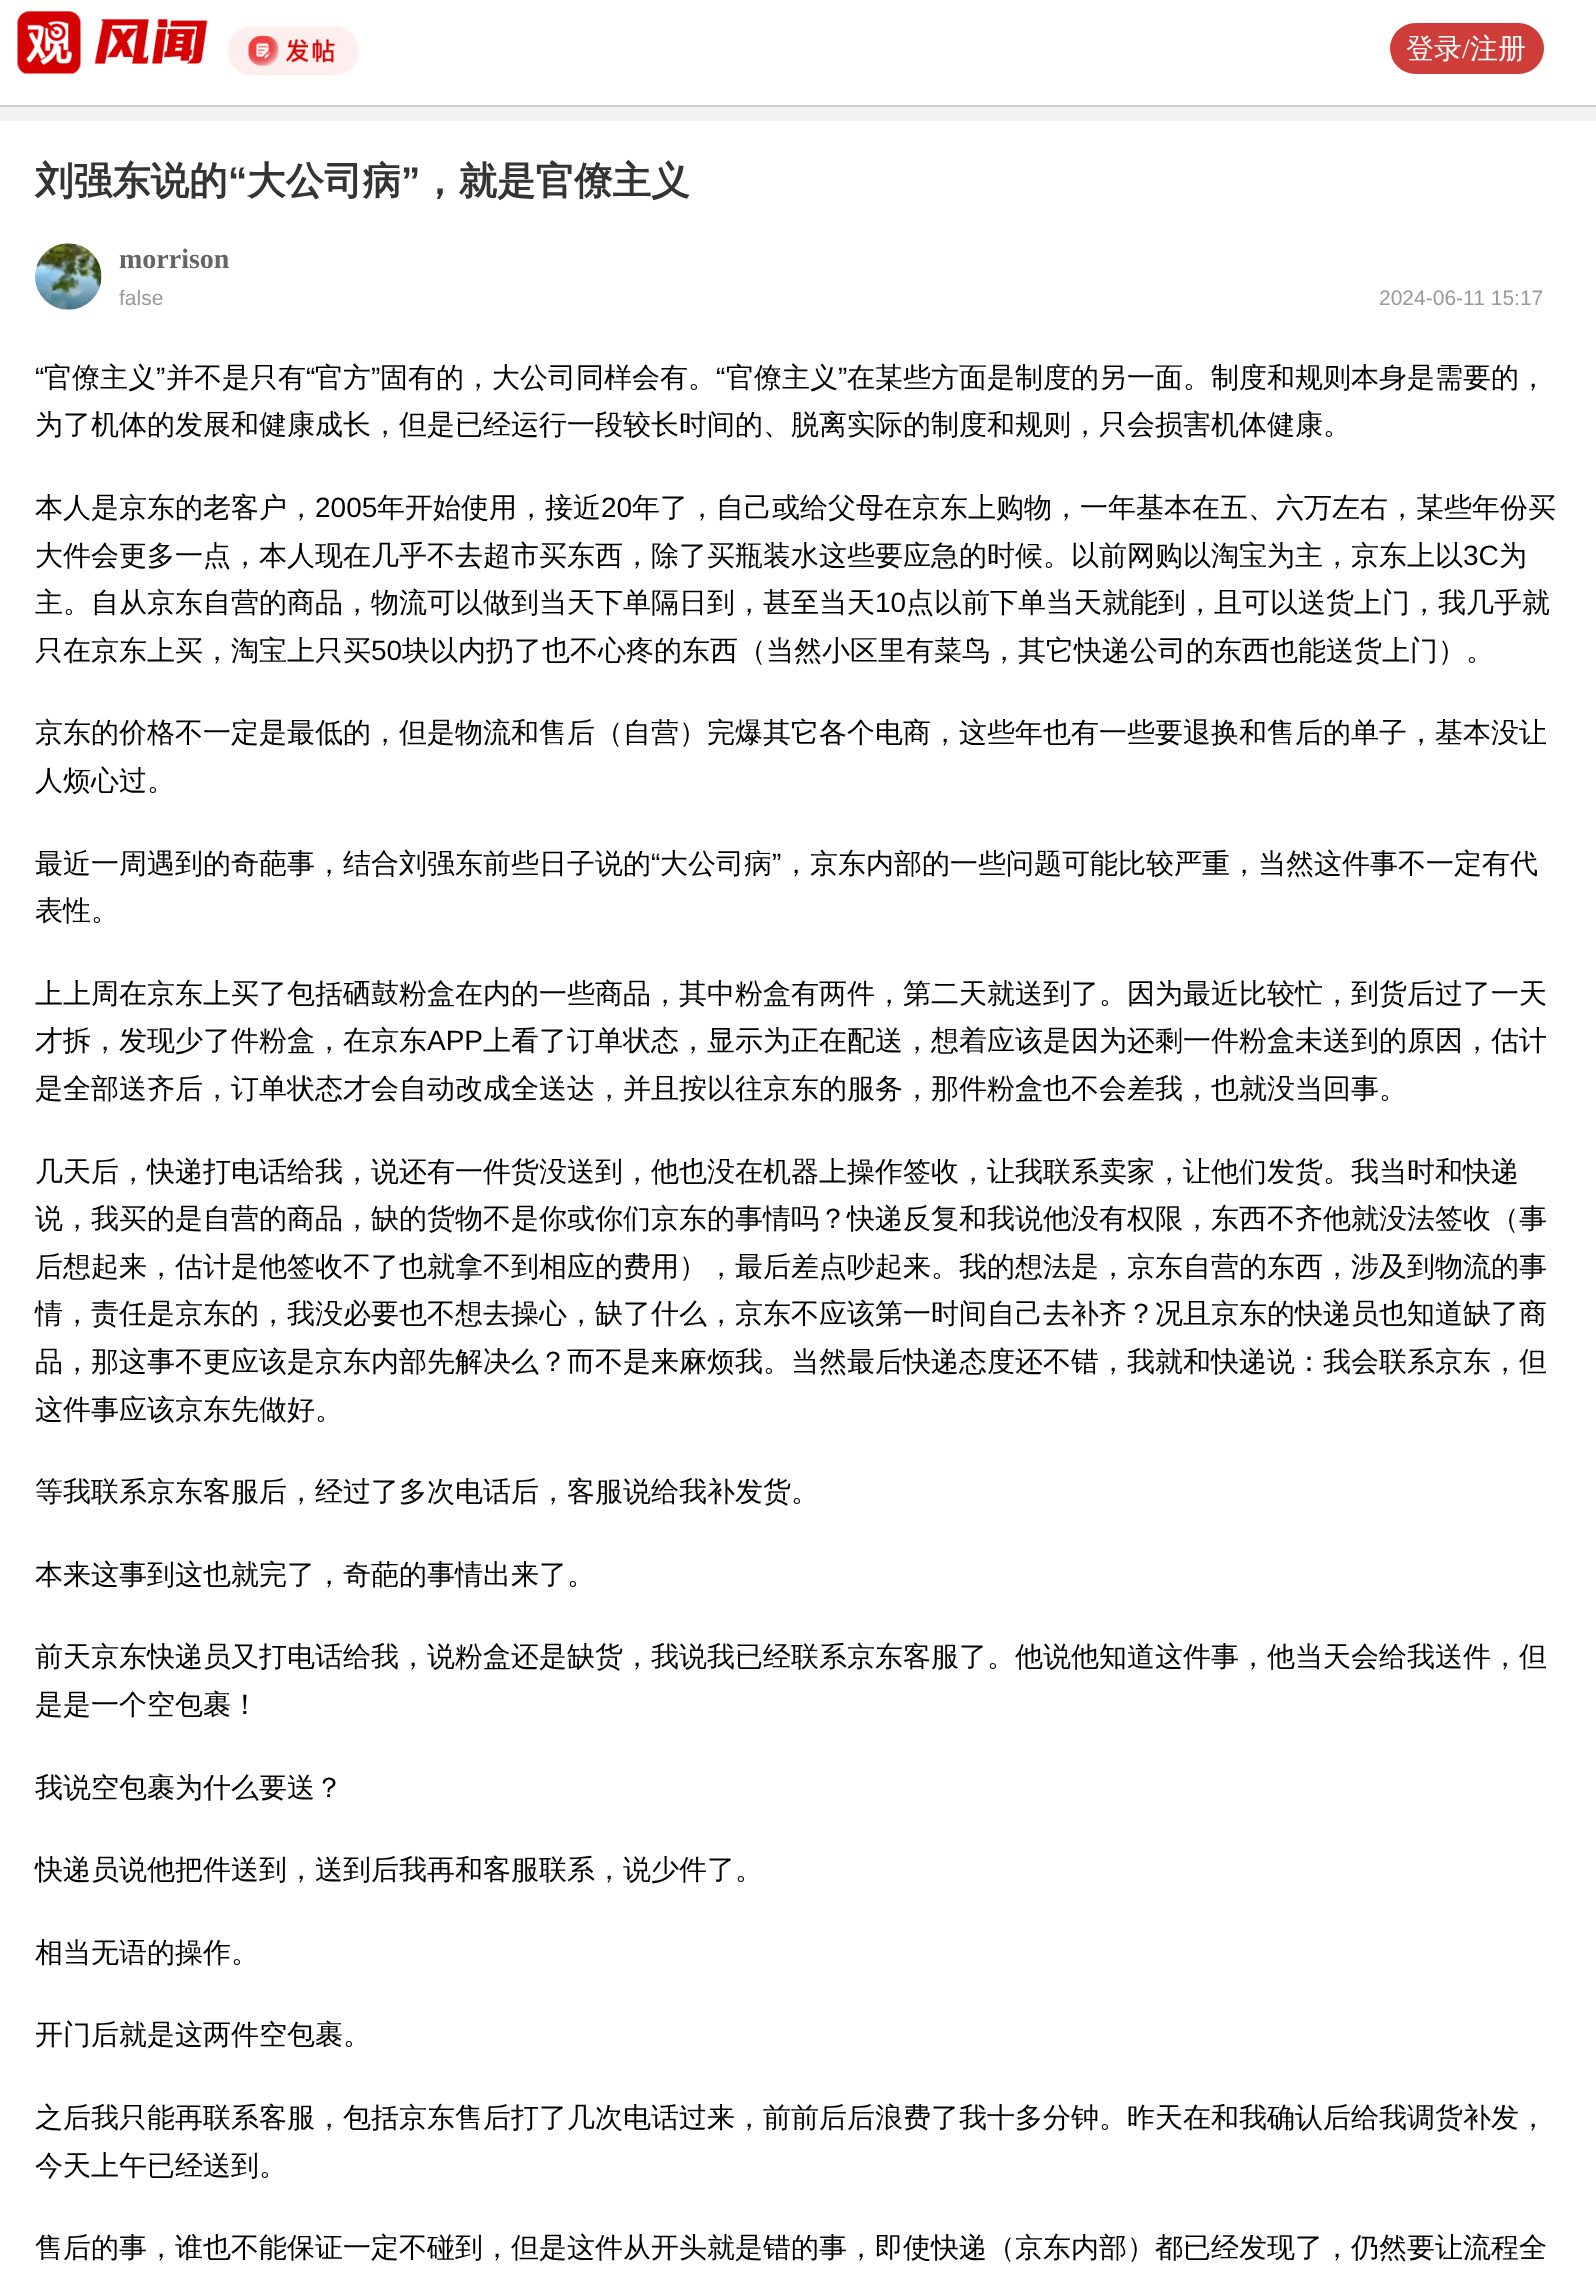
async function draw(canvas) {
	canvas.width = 1596;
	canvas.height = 2280;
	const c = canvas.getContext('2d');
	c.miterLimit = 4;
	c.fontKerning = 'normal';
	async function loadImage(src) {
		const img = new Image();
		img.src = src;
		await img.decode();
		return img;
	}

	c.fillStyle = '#f2f2f2';
	c.fillRect(0, 0, 1596, 2280);
	c.fillStyle = '#fff';
	c.fillRect(0, 0, 1596, 105);
	c.fillStyle = '#ccc';
	c.fillRect(0, 105, 1596, 2);
	c.drawImage(await loadImage('img1.png'), 17, 11, 64, 63);
	c.drawImage(await loadImage('img2.png'), 94, 19, 114, 45);
	c.drawImage(await loadImage('img3.png'), 227, 26, 132, 50);
	c.fillStyle = '#ce3d3a';
	c.beginPath();
	c.roundRect(1390, 23, 154, 51, 25.5);
	c.fill();
	c.font = '500 28px WenQuanYi Zen Hei';
	c.fillStyle = '#fff';
	c.fillText('登录', 1406, 58);
	c.font = '28px Liberation Serif';
	c.fillText('/', 1462, 58);
	c.font = '500 28px WenQuanYi Zen Hei';
	c.fillText('注册', 1470, 58);
	c.fillRect(0, 121, 1596, 2159);
	c.font = 'bold 38.5px WenQuanYi Zen Hei';
	c.fillStyle = '#343434';
	c.fillText('刘强东说的', 35, 194);
	c.font = 'bold 38.5px Liberation Sans';
	c.fillText('“', 228, 194);
	c.font = 'bold 38.5px WenQuanYi Zen Hei';
	c.fillText('大公司病', 247, 194);
	c.font = 'bold 38.5px Liberation Sans';
	c.fillText('”', 401, 194);
	c.font = 'bold 38.5px WenQuanYi Zen Hei';
	c.fillText('，就是官僚主义', 420, 194);
	c.drawImage(await loadImage('img4.png'), 35, 243, 67, 67);
	c.font = 'bold 28px Liberation Serif';
	c.fillStyle = '#656565';
	c.fillText('morrison', 119, 268);
	c.font = '21px Liberation Sans';
	c.fillStyle = '#999';
	c.fillText('false', 119, 305);
	c.fillText('2024-06-11 15:17', 1379, 305);
	c.font = '28px Liberation Sans';
	c.fillStyle = '#000';
	c.fillText('“', 35, 387);
	c.font = '500 28px WenQuanYi Zen Hei';
	c.fillText('官僚主义', 44, 387);
	c.font = '28px Liberation Sans';
	c.fillText('”', 156, 387);
	c.font = '500 28px WenQuanYi Zen Hei';
	c.fillText('并不是只有', 166, 387);
	c.font = '28px Liberation Sans';
	c.fillText('“', 306, 387);
	c.font = '500 28px WenQuanYi Zen Hei';
	c.fillText('官方', 315, 387);
	c.font = '28px Liberation Sans';
	c.fillText('”', 371, 387);
	c.font = '500 28px WenQuanYi Zen Hei';
	c.fillText('固有的，大公司同样会有。', 380, 387);
	c.font = '28px Liberation Sans';
	c.fillText('“', 716, 387);
	c.font = '500 28px WenQuanYi Zen Hei';
	c.fillText('官僚主义', 726, 387);
	c.font = '28px Liberation Sans';
	c.fillText('”', 838, 387);
	c.font = '500 28px WenQuanYi Zen Hei';
	for (const [text, x, y] of [
		['在某些方面是制度的另一面。制度和规则本身是需要的，', 847, 387],
		['为了机体的发展和健康成长，但是已经运行一段较长时间的、脱离实际的制度和规则，只会损害机体健康。', 35, 434],
		['本人是京东的老客户，', 35, 517],
	]) {
		c.fillText(text, x, y);
	}
	c.font = '28px Liberation Sans';
	c.fillText('2005', 315, 517);
	c.font = '500 28px WenQuanYi Zen Hei';
	c.fillText('年开始使用，接近', 377, 517);
	c.font = '28px Liberation Sans';
	c.fillText('20', 601, 517);
	c.font = '500 28px WenQuanYi Zen Hei';
	c.fillText('年了，自己或给父母在京东上购物，一年基本在五、六万左右，某些年份买', 632, 517);
	c.fillText('大件会更多一点，本人现在几乎不去超市买东西，除了买瓶装水这些要应急的时候。以前网购以淘宝为主，京东上以', 35, 565);
	c.font = '28px Liberation Sans';
	c.fillText('3C', 1463, 565);
	c.font = '500 28px WenQuanYi Zen Hei';
	c.fillText('为', 1499, 565);
	c.fillText('主。自从京东自营的商品，物流可以做到当天下单隔日到，甚至当天', 35, 612);
	c.font = '28px Liberation Sans';
	c.fillText('10', 875, 612);
	c.font = '500 28px WenQuanYi Zen Hei';
	c.fillText('点以前下单当天就能到，且可以送货上门，我几乎就', 906, 612);
	c.fillText('只在京东上买，淘宝上只买', 35, 660);
	c.font = '28px Liberation Sans';
	c.fillText('50', 371, 660);
	c.font = '500 28px WenQuanYi Zen Hei';
	for (const [text, x, y] of [
		['块以内扔了也不心疼的东西（当然小区里有菜鸟，其它快递公司的东西也能送货上门）。', 402, 660],
		['京东的价格不一定是最低的，但是物流和售后（自营）完爆其它各个电商，这些年也有一些要退换和售后的单子，基本没让', 35, 742],
		['人烦心过。', 35, 790],
		['最近一周遇到的奇葩事，结合刘强东前些日子说的', 35, 873],
	]) {
		c.fillText(text, x, y);
	}
	c.font = '28px Liberation Sans';
	c.fillText('“', 651, 873);
	c.font = '500 28px WenQuanYi Zen Hei';
	c.fillText('大公司病', 660, 873);
	c.font = '28px Liberation Sans';
	c.fillText('”', 772, 873);
	c.font = '500 28px WenQuanYi Zen Hei';
	for (const [text, x, y] of [
		['，京东内部的一些问题可能比较严重，当然这件事不一定有代', 782, 873],
		['表性。', 35, 920],
		['上上周在京东上买了包括硒鼓粉盒在内的一些商品，其中粉盒有两件，第二天就送到了。因为最近比较忙，到货后过了一天', 35, 1003],
		['才拆，发现少了件粉盒，在京东', 35, 1050],
	]) {
		c.fillText(text, x, y);
	}
	c.font = '28px Liberation Sans';
	c.fillText('APP', 427, 1050);
	c.font = '500 28px WenQuanYi Zen Hei';
	for (const [text, x, y] of [
		['上看了订单状态，显示为正在配送，想着应该是因为还剩一件粉盒未送到的原因，估计', 483, 1050],
		['是全部送齐后，订单状态才会自动改成全送达，并且按以往京东的服务，那件粉盒也不会差我，也就没当回事。', 35, 1098],
		['几天后，快递打电话给我，说还有一件货没送到，他也没在机器上操作签收，让我联系卖家，让他们发货。我当时和快递', 35, 1181],
		['说，我买的是自营的商品，缺的货物不是你或你们京东的事情吗？快递反复和我说他没有权限，东西不齐他就没法签收（事', 35, 1228],
		['后想起来，估计是他签收不了也就拿不到相应的费用），最后差点吵起来。我的想法是，京东自营的东西，涉及到物流的事', 35, 1276],
		['情，责任是京东的，我没必要也不想去操心，缺了什么，京东不应该第一时间自己去补齐？况且京东的快递员也知道缺了商', 35, 1323],
		['品，那这事不更应该是京东内部先解决么？而不是来麻烦我。当然最后快递态度还不错，我就和快递说：我会联系京东，但', 35, 1371],
		['这件事应该京东先做好。', 35, 1419],
		['等我联系京东客服后，经过了多次电话后，客服说给我补发货。', 35, 1501],
		['本来这事到这也就完了，奇葩的事情出来了。', 35, 1584],
		['前天京东快递员又打电话给我，说粉盒还是缺货，我说我已经联系京东客服了。他说他知道这件事，他当天会给我送件，但', 35, 1666],
		['是是一个空包裹！', 35, 1714],
		['我说空包裹为什么要送？', 35, 1797],
		['快递员说他把件送到，送到后我再和客服联系，说少件了。', 35, 1879],
		['相当无语的操作。', 35, 1962],
		['开门后就是这两件空包裹。', 35, 2044],
		['之后我只能再联系客服，包括京东售后打了几次电话过来，前前后后浪费了我十多分钟。昨天在和我确认后给我调货补发，', 35, 2127],
		['今天上午已经送到。', 35, 2175],
		['售后的事，谁也不能保证一定不碰到，但是这件从开头就是错的事，即使快递（京东内部）都已经发现了，仍然要让流程全', 35, 2257],
	]) {
		c.fillText(text, x, y);
	}
}

draw(document.querySelector('canvas'));
